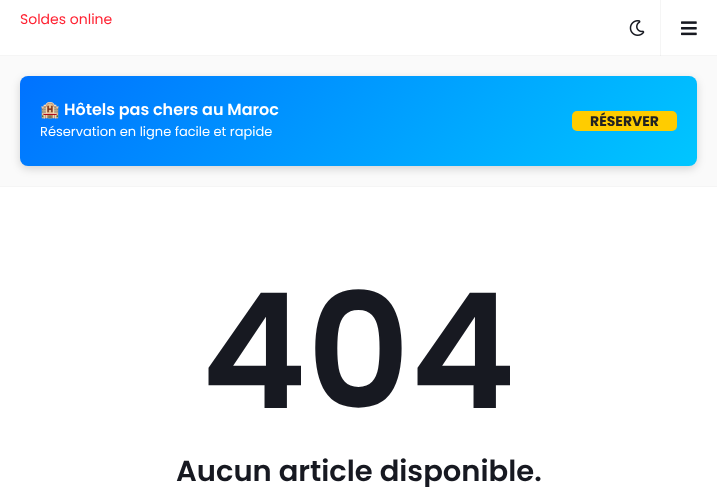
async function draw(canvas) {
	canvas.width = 717;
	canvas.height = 487;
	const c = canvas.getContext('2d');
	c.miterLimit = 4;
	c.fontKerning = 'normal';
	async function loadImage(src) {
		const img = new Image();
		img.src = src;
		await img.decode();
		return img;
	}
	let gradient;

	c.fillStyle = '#fff';
	c.fillRect(0, 0, 717, 487);
	for (const [x, y, w, h, color] of [
		[660, 0, 1, 56, '#f5f5f5'],
		[0, 55, 717, 1, '#f5f5f5'],
		[660, 55, 1, 1, '#ececec'],
	]) {
		c.fillStyle = color;
		c.fillRect(x, y, w, h);
	}
	c.font = '14px Poppins';
	c.fillStyle = '#ff2232';
	c.fillText('Soldes online', 20, 24);
	c.drawImage(await loadImage('img1.png'), 629, 20, 16, 16);
	c.drawImage(await loadImage('img2.png'), 681, 21, 16, 15);
	c.fillStyle = '#f5f5f5';
	c.fillRect(0, 186, 717, 1);
	c.fillStyle = '#fafafa';
	c.fillRect(0, 56, 717, 130);
	c.fillStyle = '#00000026';
	c.filter = 'blur(4px)';
	c.beginPath();
	c.roundRect(20, 79, 677, 90, 8);
	c.fill();
	c.filter = 'none';
	gradient = c.createLinearGradient(167, -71, 550, 313);
	gradient.addColorStop(0, '#0072ff');
	gradient.addColorStop(1, '#00c6ff');
	c.fillStyle = gradient;
	c.beginPath();
	c.roundRect(20, 76, 677, 90, 8);
	c.fill();
	c.font = 'bold 16px Noto Color Emoji';
	c.fillStyle = '#fff';
	c.fillText('🏨', 40, 115);
	c.font = '600 16px Poppins';
	c.fillText('Hôtels pas chers au Maroc', 64, 115);
	c.font = '13px Poppins';
	c.fillText('Réservation en ligne facile et rapide', 40, 136);
	c.fillStyle = '#fc0';
	c.beginPath();
	c.roundRect(572, 111, 105, 20, 5);
	c.fill();
	c.font = 'bold 14px Poppins';
	c.fillStyle = '#222';
	c.fillText('RÉSERVER', 590, 126);
	c.font = '600 160px Poppins';
	c.fillStyle = '#171921';
	c.fillText('404', 201, 408);
	c.font = '600 29px Poppins';
	c.fillText('Aucun article disponible.', 176, 481);
}

draw(document.querySelector('canvas'));
